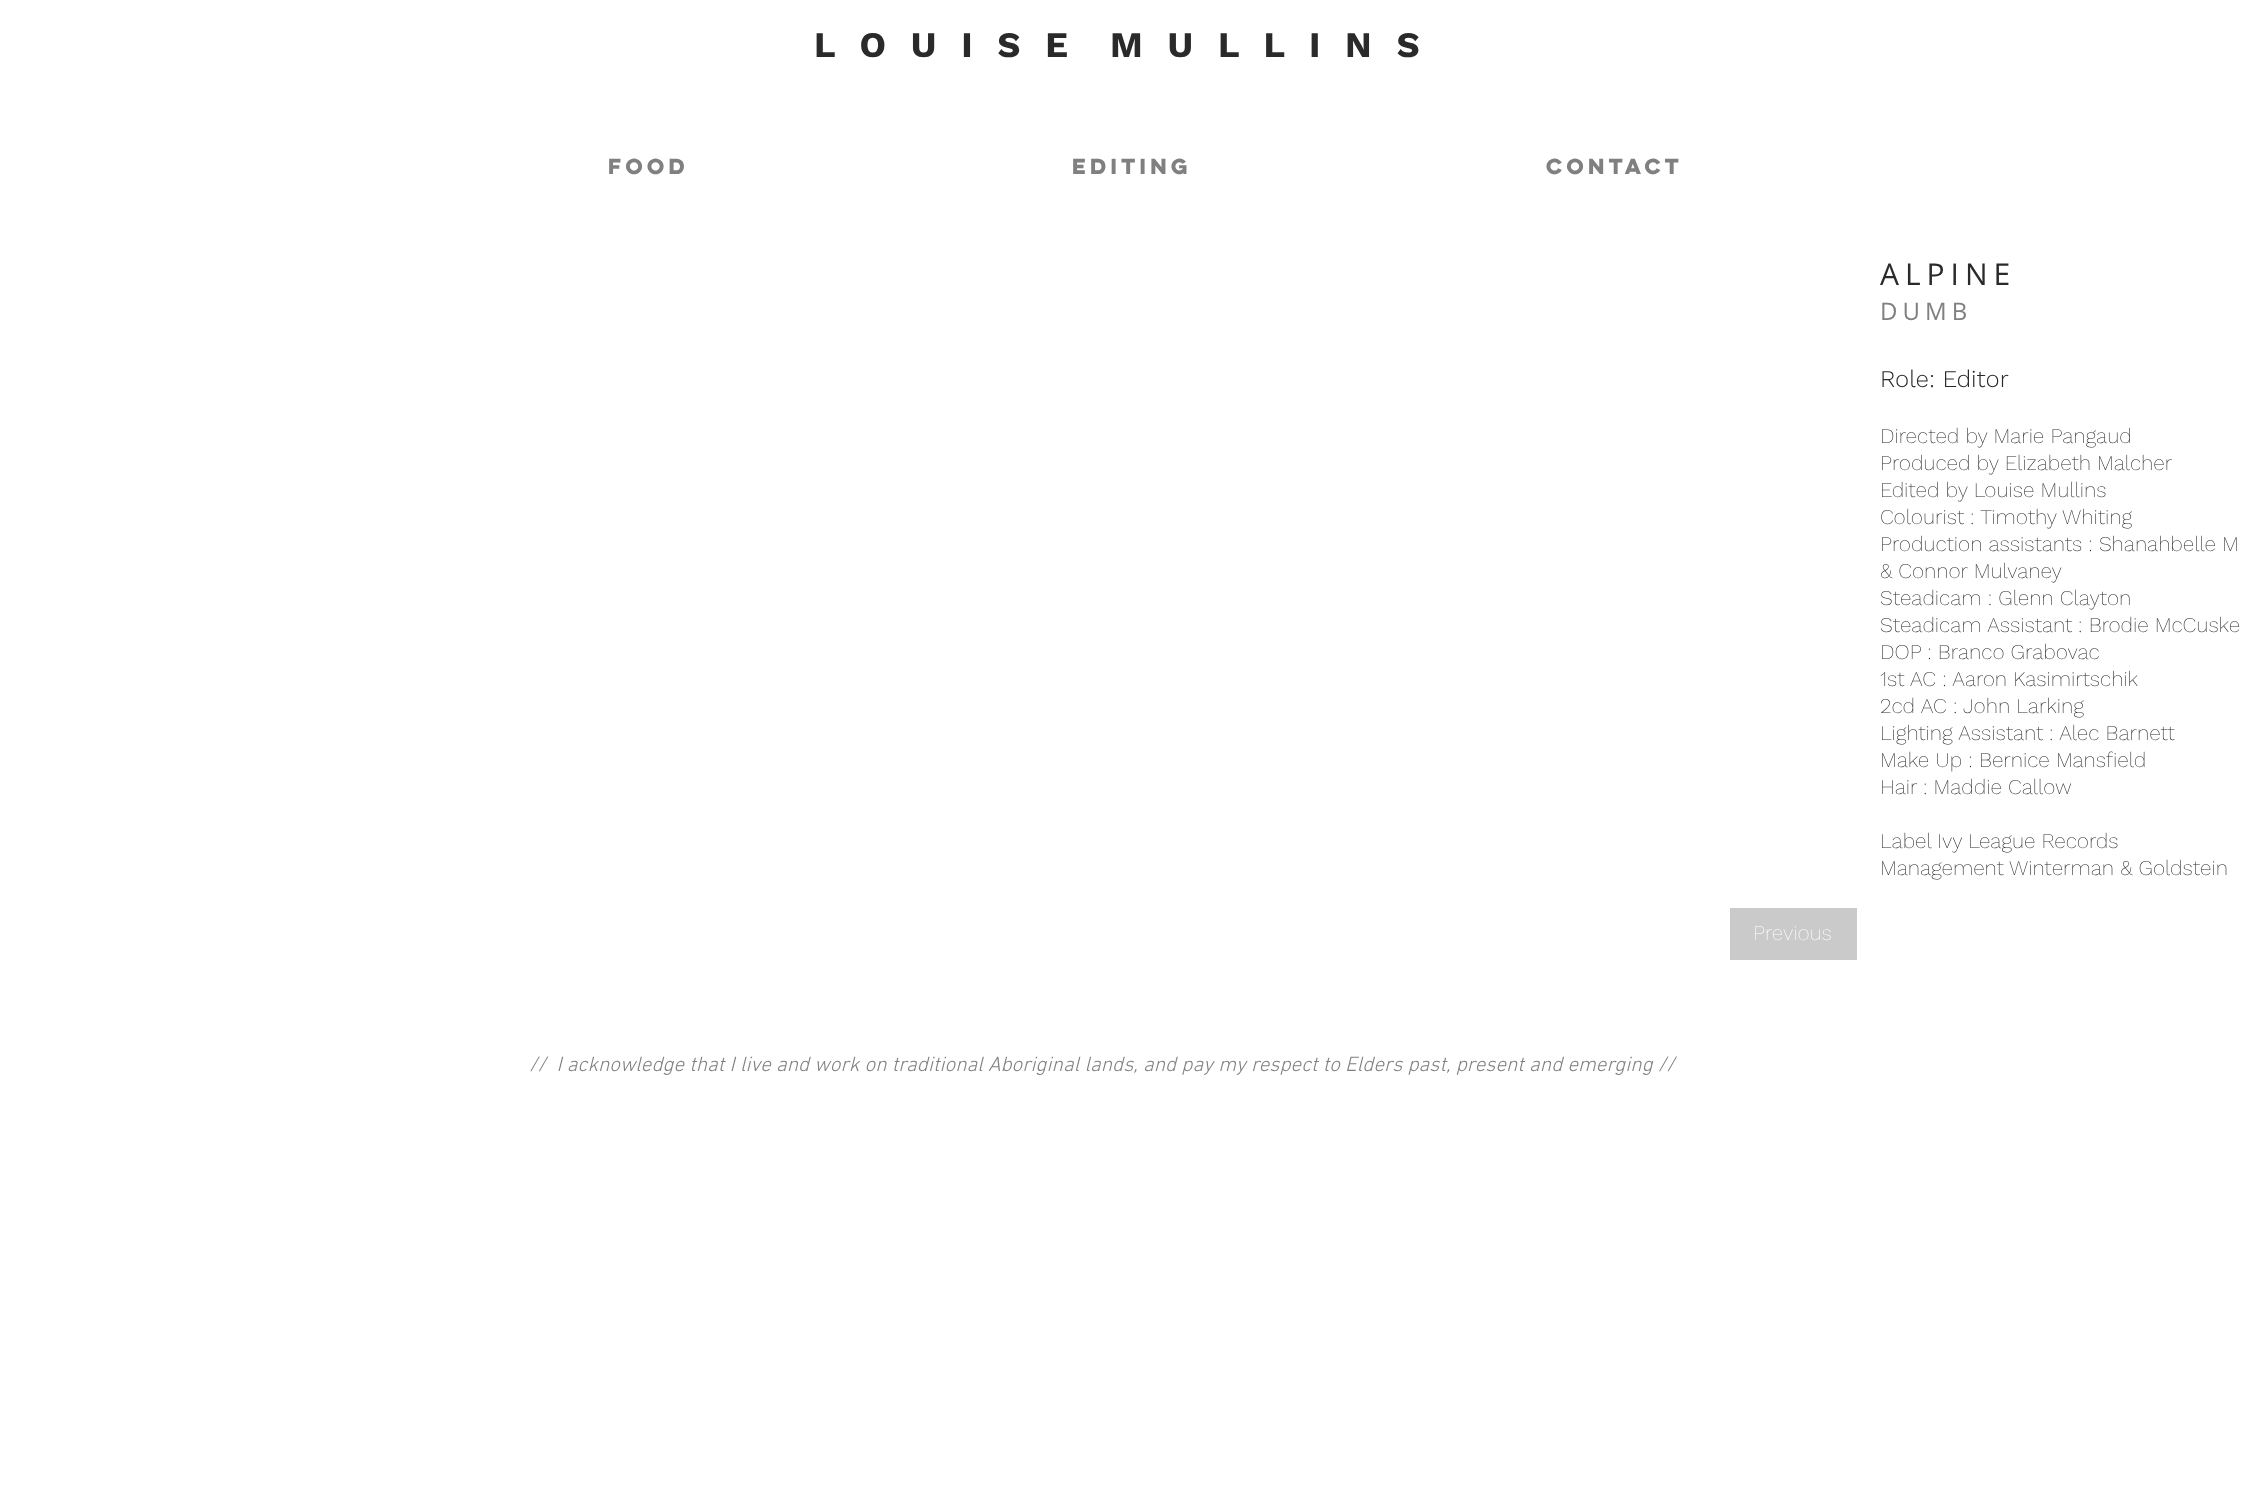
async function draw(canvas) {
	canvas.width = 2242;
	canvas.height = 1490;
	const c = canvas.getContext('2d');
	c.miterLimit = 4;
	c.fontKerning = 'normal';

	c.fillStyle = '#fff';
	c.fillRect(0, 0, 2242, 1490);
	c.letterSpacing = '7.2px';
	c.font = 'bold 36px Work Sans';
	c.fillStyle = '#2a2a2a';
	c.fillText('L O U I S E  M U L L I N S', 814, 57);
	c.letterSpacing = '0px';
	c.font = 'bold 19.5px "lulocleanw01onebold"';
	c.fillStyle = '#808080';
	for (const [text, x, y] of [
		['FOOD', 608, 174],
		['EDITING', 1072, 174],
		['CONTACT', 1546, 174],
	]) {
		c.fillText(text, x, y);
	}
	c.letterSpacing = '6px';
	c.font = '30px Open Sans';
	c.fillStyle = '#2a2a2a';
	c.fillText('ALPINE', 1880, 285);
	c.letterSpacing = '5px';
	c.font = '24px Open Sans';
	c.fillStyle = '#808080';
	c.fillText('DUMB', 1880, 320);
	c.letterSpacing = '0px';
	c.font = '300 24px Work Sans';
	c.fillStyle = '#2a2a2a';
	c.fillText('Role: Editor', 1880, 387);
	c.font = '200 21px Work Sans';
	for (const [text, x, y] of [
		['Directed by Marie Pangaud', 1880, 443],
		['Produced by Elizabeth Malcher', 1880, 470],
		['Edited by Louise Mullins', 1880, 497],
		['Colourist : Timothy Whiting', 1880, 524],
		['Production assistants : Shanahbelle M', 1880, 551],
		['& Connor Mulvaney', 1880, 578],
		['Steadicam : Glenn Clayton', 1880, 605],
		['Steadicam Assistant : Brodie McCuske', 1880, 632],
		['DOP : Branco Grabovac', 1880, 659],
		['1st AC : Aaron Kasimirtschik', 1880, 686],
		['2cd AC : John Larking', 1880, 713],
		['Lighting Assistant : Alec Barnett', 1880, 740],
		['Make Up : Bernice Mansfield', 1880, 767],
		['Hair : Maddie Callow', 1880, 794],
		['Label Ivy League Records', 1880, 848],
		['Management Winterman & Goldstein', 1880, 875],
	]) {
		c.fillText(text, x, y);
	}
	c.fillStyle = '#cacaca';
	c.fillRect(1730, 908, 127, 52);
	c.fillStyle = '#fff';
	c.fillText('Previous', 1753, 940);
	c.font = 'italic 300 21px "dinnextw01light"';
	c.fillStyle = '#808080';
	c.fillText('//  I acknowledge that I live and work on traditional Aboriginal lands, and pay my respect to Elders past, present and emerging //', 529, 1071);
}

draw(document.querySelector('canvas'));
